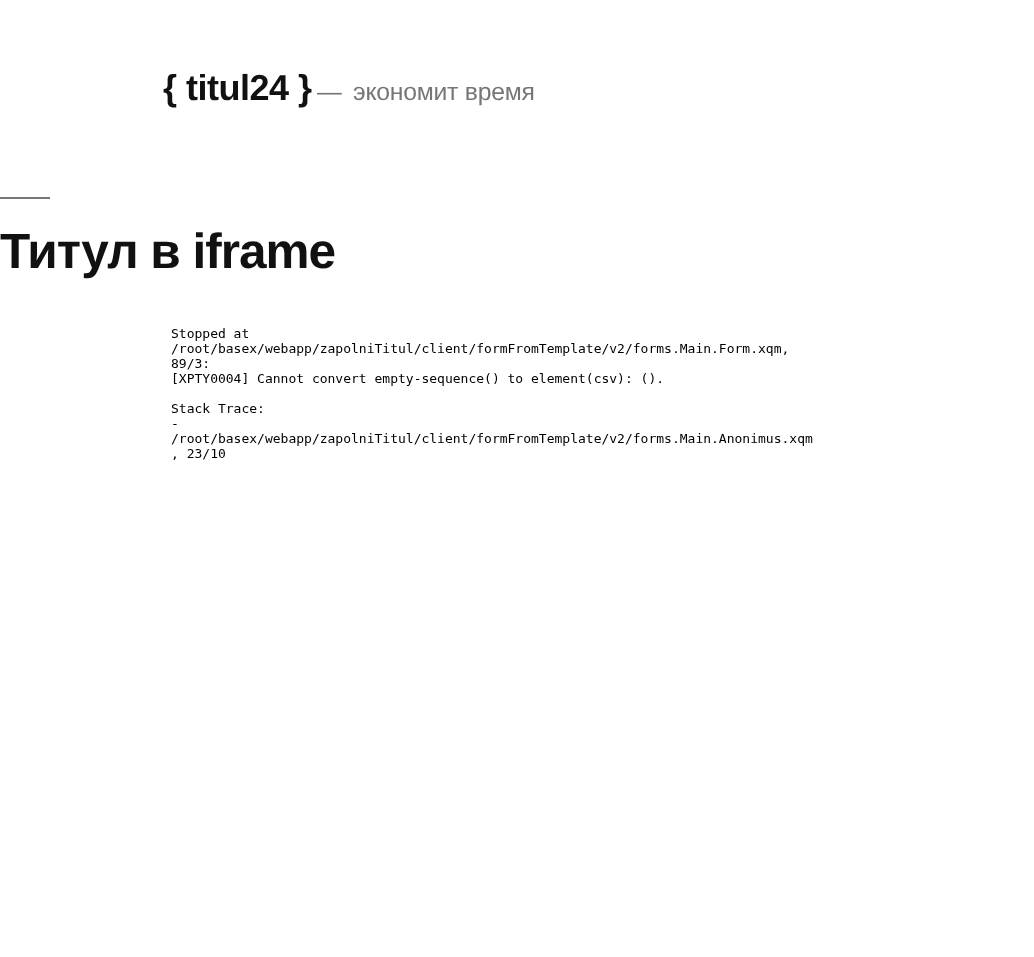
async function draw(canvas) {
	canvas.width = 1034;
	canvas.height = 957;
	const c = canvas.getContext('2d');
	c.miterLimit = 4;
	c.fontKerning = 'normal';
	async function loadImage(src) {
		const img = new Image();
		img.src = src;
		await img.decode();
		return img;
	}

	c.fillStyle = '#fff';
	c.fillRect(0, 0, 1034, 957);
	c.letterSpacing = '-0.5px';
	c.font = 'bold 36px Liberation Sans';
	c.fillStyle = '#111';
	c.fillText('{ titul24 }', 163, 100);
	c.letterSpacing = '-0.25px';
	c.font = '24.75px Liberation Sans';
	c.fillStyle = '#767676';
	c.fillText('—', 317, 100);
	c.fillText('экономит время', 353, 100);
	c.fillRect(0, 197, 50, 2);
	c.letterSpacing = '-1px';
	c.font = 'bold 49.5px Liberation Sans';
	c.fillStyle = '#111';
	c.fillText('Титул в iframe', 0, 268);
	c.drawImage(await loadImage('img1.png'), 171, 328, 642, 132);
}

draw(document.querySelector('canvas'));
